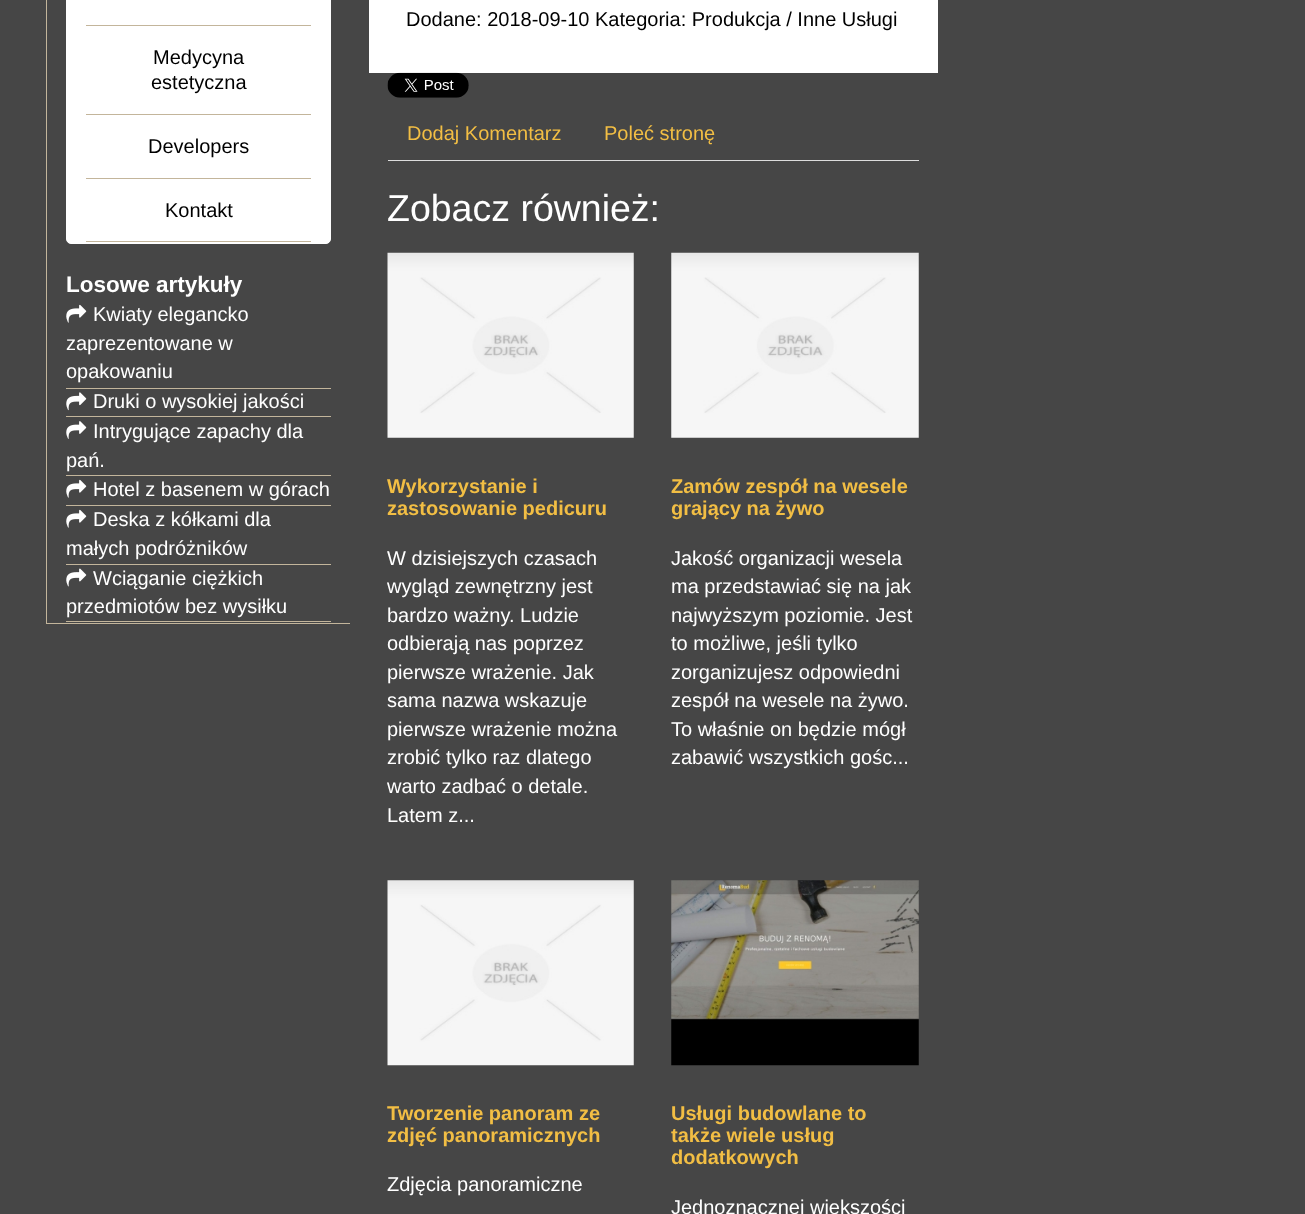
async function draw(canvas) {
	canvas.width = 1305;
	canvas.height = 1214;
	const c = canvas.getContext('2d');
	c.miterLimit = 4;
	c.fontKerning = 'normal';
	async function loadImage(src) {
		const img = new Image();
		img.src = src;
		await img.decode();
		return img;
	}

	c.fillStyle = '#464646';
	c.fillRect(0, 0, 1305, 1214);
	c.fillStyle = '#c3b59b';
	c.fillRect(46, 623, 304, 1);
	c.fillRect(46, 0, 1, 624);
	c.fillStyle = '#fff';
	c.beginPath();
	c.roundRect(66.5, -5.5, 264, 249, 4.5);
	c.fill();
	c.strokeStyle = '#fff';
	c.stroke();
	c.fillStyle = '#c3b59b';
	c.fillRect(86, 25, 225, 1);
	c.fillRect(86, 114, 225, 1);
	c.font = '20px Liberation Sans';
	c.fillStyle = '#000';
	c.fillText('Medycyna', 153, 64);
	c.fillText('estetyczna', 151, 89);
	c.fillStyle = '#c3b59b';
	c.fillRect(86, 178, 225, 1);
	c.fillStyle = '#000';
	c.fillText('Developers', 148, 153);
	c.fillStyle = '#c3b59b';
	c.fillRect(86, 241, 225, 1);
	c.fillStyle = '#000';
	c.fillText('Kontakt', 165, 217);
	c.font = 'bold 22.5px Liberation Sans';
	c.fillStyle = '#fff';
	c.fillText('Losowe artykuły', 66, 292);
	c.fillStyle = '#c3b59b';
	c.fillRect(66, 388, 265, 1);
	c.drawImage(await loadImage('img1.png'), 66, 304, 21, 19);
	c.font = '20px Liberation Sans';
	c.fillStyle = '#fff';
	for (const [text, x, y] of [
		['Kwiaty elegancko', 93, 321],
		['zaprezentowane w', 66, 350],
		['opakowaniu', 66, 378],
	]) {
		c.fillText(text, x, y);
	}
	c.fillStyle = '#c3b59b';
	c.fillRect(66, 416, 265, 1);
	c.drawImage(await loadImage('img2.png'), 66, 392, 21, 19);
	c.fillStyle = '#fff';
	c.fillText('Druki o wysokiej jakości', 93, 408);
	c.fillStyle = '#c3b59b';
	c.fillRect(66, 475, 265, 1);
	c.drawImage(await loadImage('img3.png'), 66, 421, 21, 18);
	c.fillStyle = '#fff';
	c.fillText('Intrygujące zapachy dla', 93, 438);
	c.fillText('pań.', 66, 467);
	c.fillStyle = '#c3b59b';
	c.fillRect(66, 505, 265, 1);
	c.drawImage(await loadImage('img1.png'), 66, 479, 21, 19);
	c.fillStyle = '#fff';
	c.fillText('Hotel z basenem w górach', 93, 496);
	c.fillStyle = '#c3b59b';
	c.fillRect(66, 564, 265, 1);
	c.drawImage(await loadImage('img1.png'), 66, 509, 21, 19);
	c.fillStyle = '#fff';
	c.fillText('Deska z kółkami dla', 93, 526);
	c.fillText('małych podróżników', 66, 555);
	c.fillStyle = '#c3b59b';
	c.fillRect(66, 621, 265, 1);
	c.drawImage(await loadImage('img4.png'), 66, 568, 21, 19);
	c.fillStyle = '#fff';
	c.fillText('Wciąganie ciężkich', 93, 585);
	c.fillText('przedmiotów bez wysiłku', 66, 613);
	c.fillRect(369, 0, 569, 73);
	c.fillStyle = '#000';
	c.fillText('Dodane: 2018-09-10 Kategoria: Produkcja / Inne Usługi', 406, 26);
	c.drawImage(await loadImage('img5.png'), 387, 72, 82, 26);
	c.fillStyle = '#ddd';
	c.fillRect(388, 160, 531, 1);
	c.fillStyle = '#f2be44';
	c.fillText('Dodaj Komentarz', 407, 140);
	c.fillText('Poleć stronę', 604, 140);
	c.font = '37.5px Liberation Sans';
	c.fillStyle = '#fff';
	c.fillText('Zobacz również:', 387, 221);
	c.drawImage(await loadImage('img6.png'), 387, 252, 247, 186);
	c.font = 'bold 20px Liberation Sans';
	c.fillStyle = '#f2be44';
	c.fillText('Wykorzystanie i', 387, 493);
	c.fillText('zastosowanie pedicuru', 387, 515);
	c.font = '20px Liberation Sans';
	c.fillStyle = '#fff';
	for (const [text, x, y] of [
		['W dzisiejszych czasach', 387, 565],
		['wygląd zewnętrzny jest', 387, 593],
		['bardzo ważny. Ludzie', 387, 622],
		['odbierają nas poprzez', 387, 650],
		['pierwsze wrażenie. Jak', 387, 679],
		['sama nazwa wskazuje', 387, 707],
		['pierwsze wrażenie można', 387, 736],
		['zrobić tylko raz dlatego', 387, 764],
		['warto zadbać o detale.', 387, 793],
		['Latem z...', 387, 822],
	]) {
		c.fillText(text, x, y);
	}
	c.drawImage(await loadImage('img7.png'), 671, 252, 248, 186);
	c.font = 'bold 20px Liberation Sans';
	c.fillStyle = '#f2be44';
	c.fillText('Zamów zespół na wesele', 671, 493);
	c.fillText('grający na żywo', 671, 515);
	c.font = '20px Liberation Sans';
	c.fillStyle = '#fff';
	for (const [text, x, y] of [
		['Jakość organizacji wesela', 671, 565],
		['ma przedstawiać się na jak', 671, 593],
		['najwyższym poziomie. Jest', 671, 622],
		['to możliwe, jeśli tylko', 671, 650],
		['zorganizujesz odpowiedni', 671, 679],
		['zespół na wesele na żywo.', 671, 707],
		['To właśnie on będzie mógł', 671, 736],
		['zabawić wszystkich gośc...', 671, 764],
	]) {
		c.fillText(text, x, y);
	}
	c.drawImage(await loadImage('img8.png'), 387, 880, 247, 186);
	c.font = 'bold 20px Liberation Sans';
	c.fillStyle = '#f2be44';
	c.fillText('Tworzenie panoram ze', 387, 1120);
	c.fillText('zdjęć panoramicznych', 387, 1142);
	c.font = '20px Liberation Sans';
	c.fillStyle = '#fff';
	c.fillText('Zdjęcia panoramiczne', 387, 1191);
	c.drawImage(await loadImage('img9.png'), 671, 880, 248, 186);
	c.font = 'bold 20px Liberation Sans';
	c.fillStyle = '#f2be44';
	for (const [text, x, y] of [
		['Usługi budowlane to', 671, 1120],
		['także wiele usług', 671, 1142],
		['dodatkowych', 671, 1164],
	]) {
		c.fillText(text, x, y);
	}
	c.font = '20px Liberation Sans';
	c.fillStyle = '#fff';
	c.fillText('Jednoznacznej większości', 671, 1214);
}

draw(document.querySelector('canvas'));
